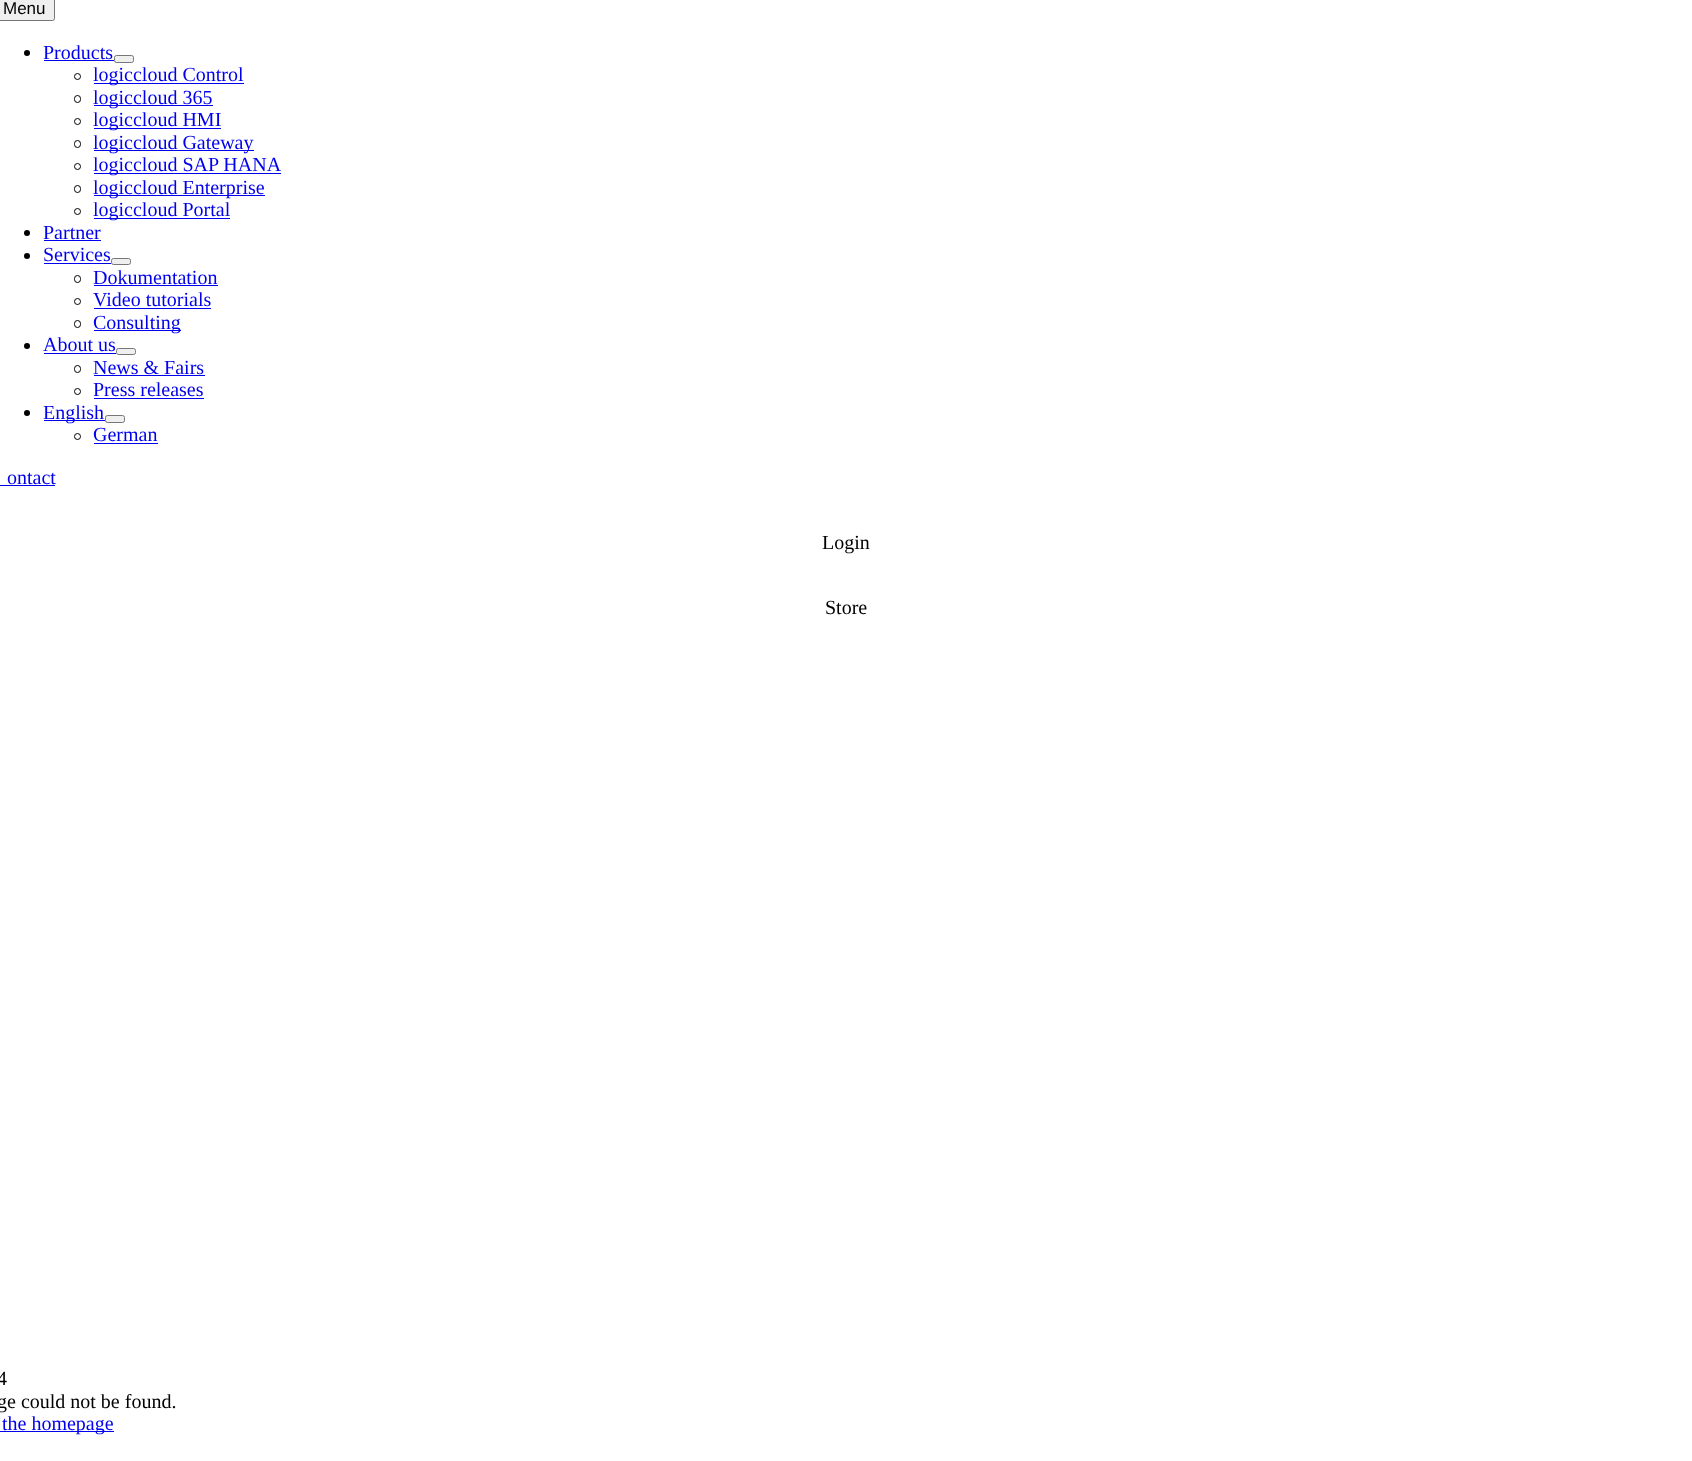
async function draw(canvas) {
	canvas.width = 1692;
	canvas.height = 1461;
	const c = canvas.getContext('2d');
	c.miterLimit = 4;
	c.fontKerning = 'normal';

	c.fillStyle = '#fff';
	c.fillRect(0, 0, 1692, 1461);
	c.fillStyle = '#efefef';
	c.beginPath();
	c.roundRect(-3.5, -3.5, 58, 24, 2);
	c.fill();
	c.strokeStyle = '#767676';
	c.stroke();
	c.font = '17px Liberation Sans';
	c.fillStyle = '#000';
	c.fillText('Menu', 3, 14);
	c.beginPath();
	c.arc(27, 53, 3, 0, 2 * Math.PI);
	c.fill();
	c.font = '20px Liberation Serif';
	c.fillStyle = '#00e';
	c.fillText('Products', 43, 59);
	c.fillRect(44, 60, 70, 1);
	c.fillStyle = '#efefef';
	c.beginPath();
	c.roundRect(114.5, 55.5, 19, 7, 2);
	c.fill();
	c.stroke();
	c.beginPath();
	c.arc(77.5, 76.5, 3, 0, 2 * Math.PI);
	c.strokeStyle = '#000';
	c.stroke();
	c.fillStyle = '#00e';
	c.fillRect(94, 83, 150, 1);
	c.fillText('logiccloud Control', 93, 81);
	c.beginPath();
	c.roundRect(74.5, 95.5, 6, 7, 3);
	c.stroke();
	c.fillRect(94, 105, 119, 1);
	c.fillText('logiccloud 365', 93, 104);
	c.beginPath();
	c.arc(77.5, 121.5, 3, 0, 2 * Math.PI);
	c.stroke();
	c.fillRect(94, 128, 127, 1);
	c.fillText('logiccloud HMI', 93, 126);
	c.beginPath();
	c.roundRect(74.5, 140.5, 6, 7, 3);
	c.stroke();
	c.fillRect(94, 150, 160, 1);
	c.fillText('logiccloud Gateway', 93, 149);
	c.beginPath();
	c.arc(77.5, 166.5, 3, 0, 2 * Math.PI);
	c.stroke();
	c.fillRect(94, 173, 187, 1);
	c.fillText('logiccloud SAP HANA', 93, 171);
	c.beginPath();
	c.roundRect(74.5, 185.5, 6, 7, 3);
	c.stroke();
	c.fillRect(94, 195, 171, 1);
	c.fillText('logiccloud Enterprise', 93, 194);
	c.beginPath();
	c.arc(77.5, 211.5, 3, 0, 2 * Math.PI);
	c.stroke();
	c.fillRect(94, 218, 136, 1);
	c.fillText('logiccloud Portal', 93, 216);
	c.fillStyle = '#000';
	c.beginPath();
	c.arc(27, 233, 3, 0, 2 * Math.PI);
	c.fill();
	c.fillStyle = '#00e';
	c.fillText('Partner', 43, 239);
	c.fillRect(44, 240, 57, 1);
	c.fillStyle = '#000';
	c.beginPath();
	c.arc(27, 256, 3, 0, 2 * Math.PI);
	c.fill();
	c.fillStyle = '#00e';
	c.fillText('Services', 43, 261);
	c.fillRect(44, 263, 67, 1);
	c.fillStyle = '#efefef';
	c.beginPath();
	c.roundRect(111.5, 258.5, 19, 6, 2);
	c.fill();
	c.strokeStyle = '#767676';
	c.stroke();
	c.beginPath();
	c.roundRect(74.5, 275.5, 6, 7, 3);
	c.strokeStyle = '#000';
	c.stroke();
	c.fillStyle = '#00e';
	c.fillText('Dokumentation', 93, 284);
	c.fillRect(94, 285, 124, 1);
	c.beginPath();
	c.arc(77.5, 301.5, 3, 0, 2 * Math.PI);
	c.stroke();
	c.fillText('Video tutorials', 93, 306);
	c.fillRect(94, 308, 117, 1);
	c.beginPath();
	c.roundRect(74.5, 320.5, 6, 7, 3);
	c.stroke();
	c.fillRect(94, 330, 87, 1);
	c.fillText('Consulting', 93, 329);
	c.fillStyle = '#000';
	c.beginPath();
	c.arc(27, 346, 3, 0, 2 * Math.PI);
	c.fill();
	c.fillStyle = '#00e';
	c.fillText('About us', 43, 351);
	c.fillRect(44, 353, 72, 1);
	c.fillStyle = '#efefef';
	c.beginPath();
	c.roundRect(116.5, 348.5, 19, 6, 2);
	c.fill();
	c.strokeStyle = '#767676';
	c.stroke();
	c.beginPath();
	c.roundRect(74.5, 365.5, 6, 7, 3);
	c.strokeStyle = '#000';
	c.stroke();
	c.fillStyle = '#00e';
	c.fillText('News & Fairs', 93, 374);
	c.fillRect(94, 375, 111, 1);
	c.beginPath();
	c.arc(77.5, 391.5, 3, 0, 2 * Math.PI);
	c.stroke();
	c.fillText('Press releases', 93, 396);
	c.fillRect(94, 398, 110, 1);
	c.fillStyle = '#000';
	c.beginPath();
	c.arc(27, 413, 3, 0, 2 * Math.PI);
	c.fill();
	c.fillStyle = '#00e';
	c.fillRect(44, 420, 61, 1);
	c.fillText('English', 43, 419);
	c.fillStyle = '#efefef';
	c.beginPath();
	c.roundRect(105.5, 415.5, 19, 7, 2);
	c.fill();
	c.strokeStyle = '#767676';
	c.stroke();
	c.beginPath();
	c.arc(77.5, 436.5, 3, 0, 2 * Math.PI);
	c.strokeStyle = '#000';
	c.stroke();
	c.fillStyle = '#00e';
	c.fillText('German', 93, 441);
	c.fillRect(94, 443, 64, 1);
	c.fillText('ontact', 7, 484);
	c.fillRect(0, 485, 55, 1);
	c.fillStyle = '#000';
	for (const [text, x, y] of [
		['Login', 822, 549],
		['Store', 825, 614],
		['4', -3, 1385],
		['ge could not be found.', -3, 1408],
	]) {
		c.fillText(text, x, y);
	}
	c.fillStyle = '#00e';
	c.fillRect(0, 1431, 114, 1);
	c.fillText('the homepage', 2, 1430);
}

draw(document.querySelector('canvas'));
